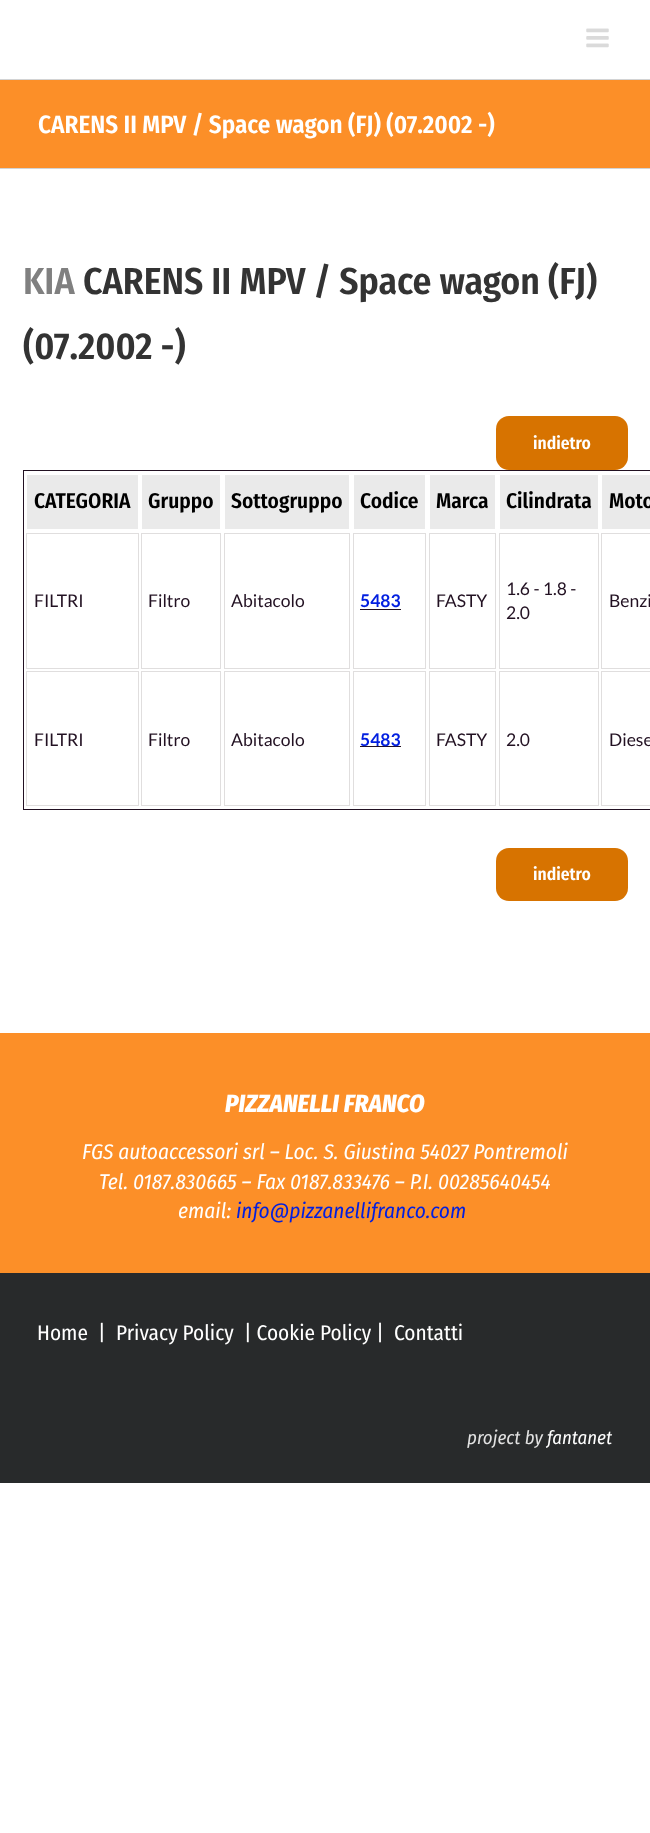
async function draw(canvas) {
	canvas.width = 650;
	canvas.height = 1833;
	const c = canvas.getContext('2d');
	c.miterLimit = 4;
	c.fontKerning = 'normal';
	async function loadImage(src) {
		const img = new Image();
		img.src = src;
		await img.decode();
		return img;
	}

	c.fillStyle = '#fff';
	c.fillRect(0, 0, 650, 1833);
	c.drawImage(await loadImage('img1.png'), 586, 28, 23, 20);
	for (const [x, y, w, h, color] of [
		[0, 80, 650, 88, '#fc8f28'],
		[0, 79, 650, 1, '#d2d3d4'],
		[0, 168, 650, 1, '#d2d3d4'],
	]) {
		c.fillStyle = color;
		c.fillRect(x, y, w, h);
	}
	c.font = '600 25px Fira Sans Condensed';
	c.fillStyle = '#fff';
	c.fillText('CARENS II MPV / Space wagon (FJ) (07.2002 -)', 38, 133);
	c.font = '600 37.5px Fira Sans Condensed';
	c.fillStyle = '#808080';
	c.fillText('KIA', 23, 294);
	c.fillStyle = '#333';
	c.fillText('CARENS II MPV / Space wagon (FJ)', 83, 294);
	c.fillText('(07.2002 -)', 23, 359);
	c.fillStyle = '#d77300';
	c.beginPath();
	c.roundRect(496, 416, 132, 54, 13);
	c.fill();
	c.font = '600 17.5px Fira Sans Condensed';
	c.fillStyle = '#fff';
	c.fillText('indietro', 533, 449);
	c.strokeStyle = '#212';
	c.strokeRect(23.5, 470.5, 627, 339);
	c.fillStyle = '#eaeaea';
	c.fillRect(27, 475, 111, 54);
	c.font = '600 21.25px Fira Sans Condensed';
	c.fillStyle = '#000';
	c.fillText('CATEGORIA', 34, 508);
	c.fillStyle = '#eaeaea';
	c.fillRect(142, 475, 78, 54);
	c.fillStyle = '#000';
	c.fillText('Gruppo', 148, 508);
	c.fillStyle = '#eaeaea';
	c.fillRect(225, 475, 124, 54);
	c.fillStyle = '#000';
	c.fillText('Sottogruppo', 231, 508);
	c.fillStyle = '#eaeaea';
	c.fillRect(354, 475, 71, 54);
	c.fillStyle = '#000';
	c.fillText('Codice', 360, 508);
	c.fillStyle = '#eaeaea';
	c.fillRect(430, 475, 65, 54);
	c.fillStyle = '#000';
	c.fillText('Marca', 436, 508);
	c.fillStyle = '#eaeaea';
	c.fillRect(500, 475, 98, 54);
	c.fillStyle = '#000';
	c.fillText('Cilindrata', 506, 508);
	c.fillStyle = '#eaeaea';
	c.fillRect(602, 475, 48, 54);
	c.fillStyle = '#000';
	c.fillText('Moto', 609, 508);
	c.strokeStyle = '#e0dede';
	c.strokeRect(26.5, 533.5, 112, 135);
	c.font = '17.5px Lato';
	c.fillStyle = '#212';
	c.fillText('FILTRI', 34, 607);
	c.strokeRect(141.5, 533.5, 79, 135);
	c.fillText('Filtro', 148, 607);
	c.strokeRect(224.5, 533.5, 125, 135);
	c.fillText('Abitacolo', 231, 607);
	c.strokeRect(353.5, 533.5, 72, 135);
	c.font = 'bold 17.5px Lato';
	c.fillStyle = '#021fe0';
	c.fillText('5483', 360, 607);
	c.fillStyle = '#212';
	c.fillRect(360, 609, 41, 1);
	c.strokeRect(429.5, 533.5, 66, 135);
	c.font = '17.5px Lato';
	c.fillText('FASTY', 436, 607);
	c.strokeRect(499.5, 533.5, 99, 135);
	c.fillText('1.6 - 1.8 -', 506, 595);
	c.fillText('2.0', 506, 619);
	c.strokeRect(601.5, 533.5, 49, 135);
	c.fillText('Benzi', 609, 607);
	c.strokeRect(26.5, 671.5, 112, 134);
	c.fillText('FILTRI', 34, 746);
	c.strokeRect(141.5, 671.5, 79, 134);
	c.fillText('Filtro', 148, 746);
	c.strokeRect(224.5, 671.5, 125, 134);
	c.fillText('Abitacolo', 231, 746);
	c.strokeRect(353.5, 671.5, 72, 134);
	c.fillRect(360, 746, 41, 1);
	c.font = 'bold 17.5px Lato';
	c.fillStyle = '#021fe0';
	c.fillText('5483', 360, 746);
	c.strokeRect(429.5, 671.5, 66, 134);
	c.font = '17.5px Lato';
	c.fillStyle = '#212';
	c.fillText('FASTY', 436, 746);
	c.strokeRect(499.5, 671.5, 99, 134);
	c.fillText('2.0', 506, 746);
	c.strokeRect(601.5, 671.5, 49, 134);
	c.fillText('Diese', 609, 746);
	c.fillStyle = '#d77300';
	c.beginPath();
	c.roundRect(496, 848, 132, 53, 13);
	c.fill();
	c.font = '600 17.5px Fira Sans Condensed';
	c.fillStyle = '#fff';
	c.fillText('indietro', 533, 880);
	c.fillStyle = '#fc8f28';
	c.fillRect(0, 1033, 650, 240);
	c.font = 'italic 800 25px Fira Sans Condensed';
	c.fillStyle = '#fff';
	c.fillText('PIZZANELLI FRANCO', 225, 1112);
	c.font = 'italic 21.25px Fira Sans Condensed';
	for (const [text, x, y] of [
		['FGS autoaccessori srl – Loc. S. Giustina 54027 Pontremoli', 82, 1159],
		['Tel. 0187.830665 – Fax 0187.833476 – P.I. 00285640454', 99, 1189],
		['email:', 178, 1218],
	]) {
		c.fillText(text, x, y);
	}
	c.fillStyle = '#021fe0';
	c.fillText('info@pizzanellifranco.com', 236, 1218);
	c.fillStyle = '#282a2b';
	c.fillRect(0, 1273, 650, 210);
	c.font = '21.25px Fira Sans Condensed';
	c.fillStyle = '#fff';
	for (const [text, x, y] of [
		['Home', 37, 1340],
		['|', 98, 1340],
		['Privacy Policy', 116, 1340],
		['| Cookie Policy |', 244, 1340],
		['Contatti', 394, 1340],
	]) {
		c.fillText(text, x, y);
	}
	c.font = 'italic 18.75px Fira Sans Condensed';
	c.fillStyle = '#e2e2e2';
	c.fillText('project by', 467, 1444);
	c.fillStyle = '#fff';
	c.fillText('fantanet', 547, 1444);
}

draw(document.querySelector('canvas'));
